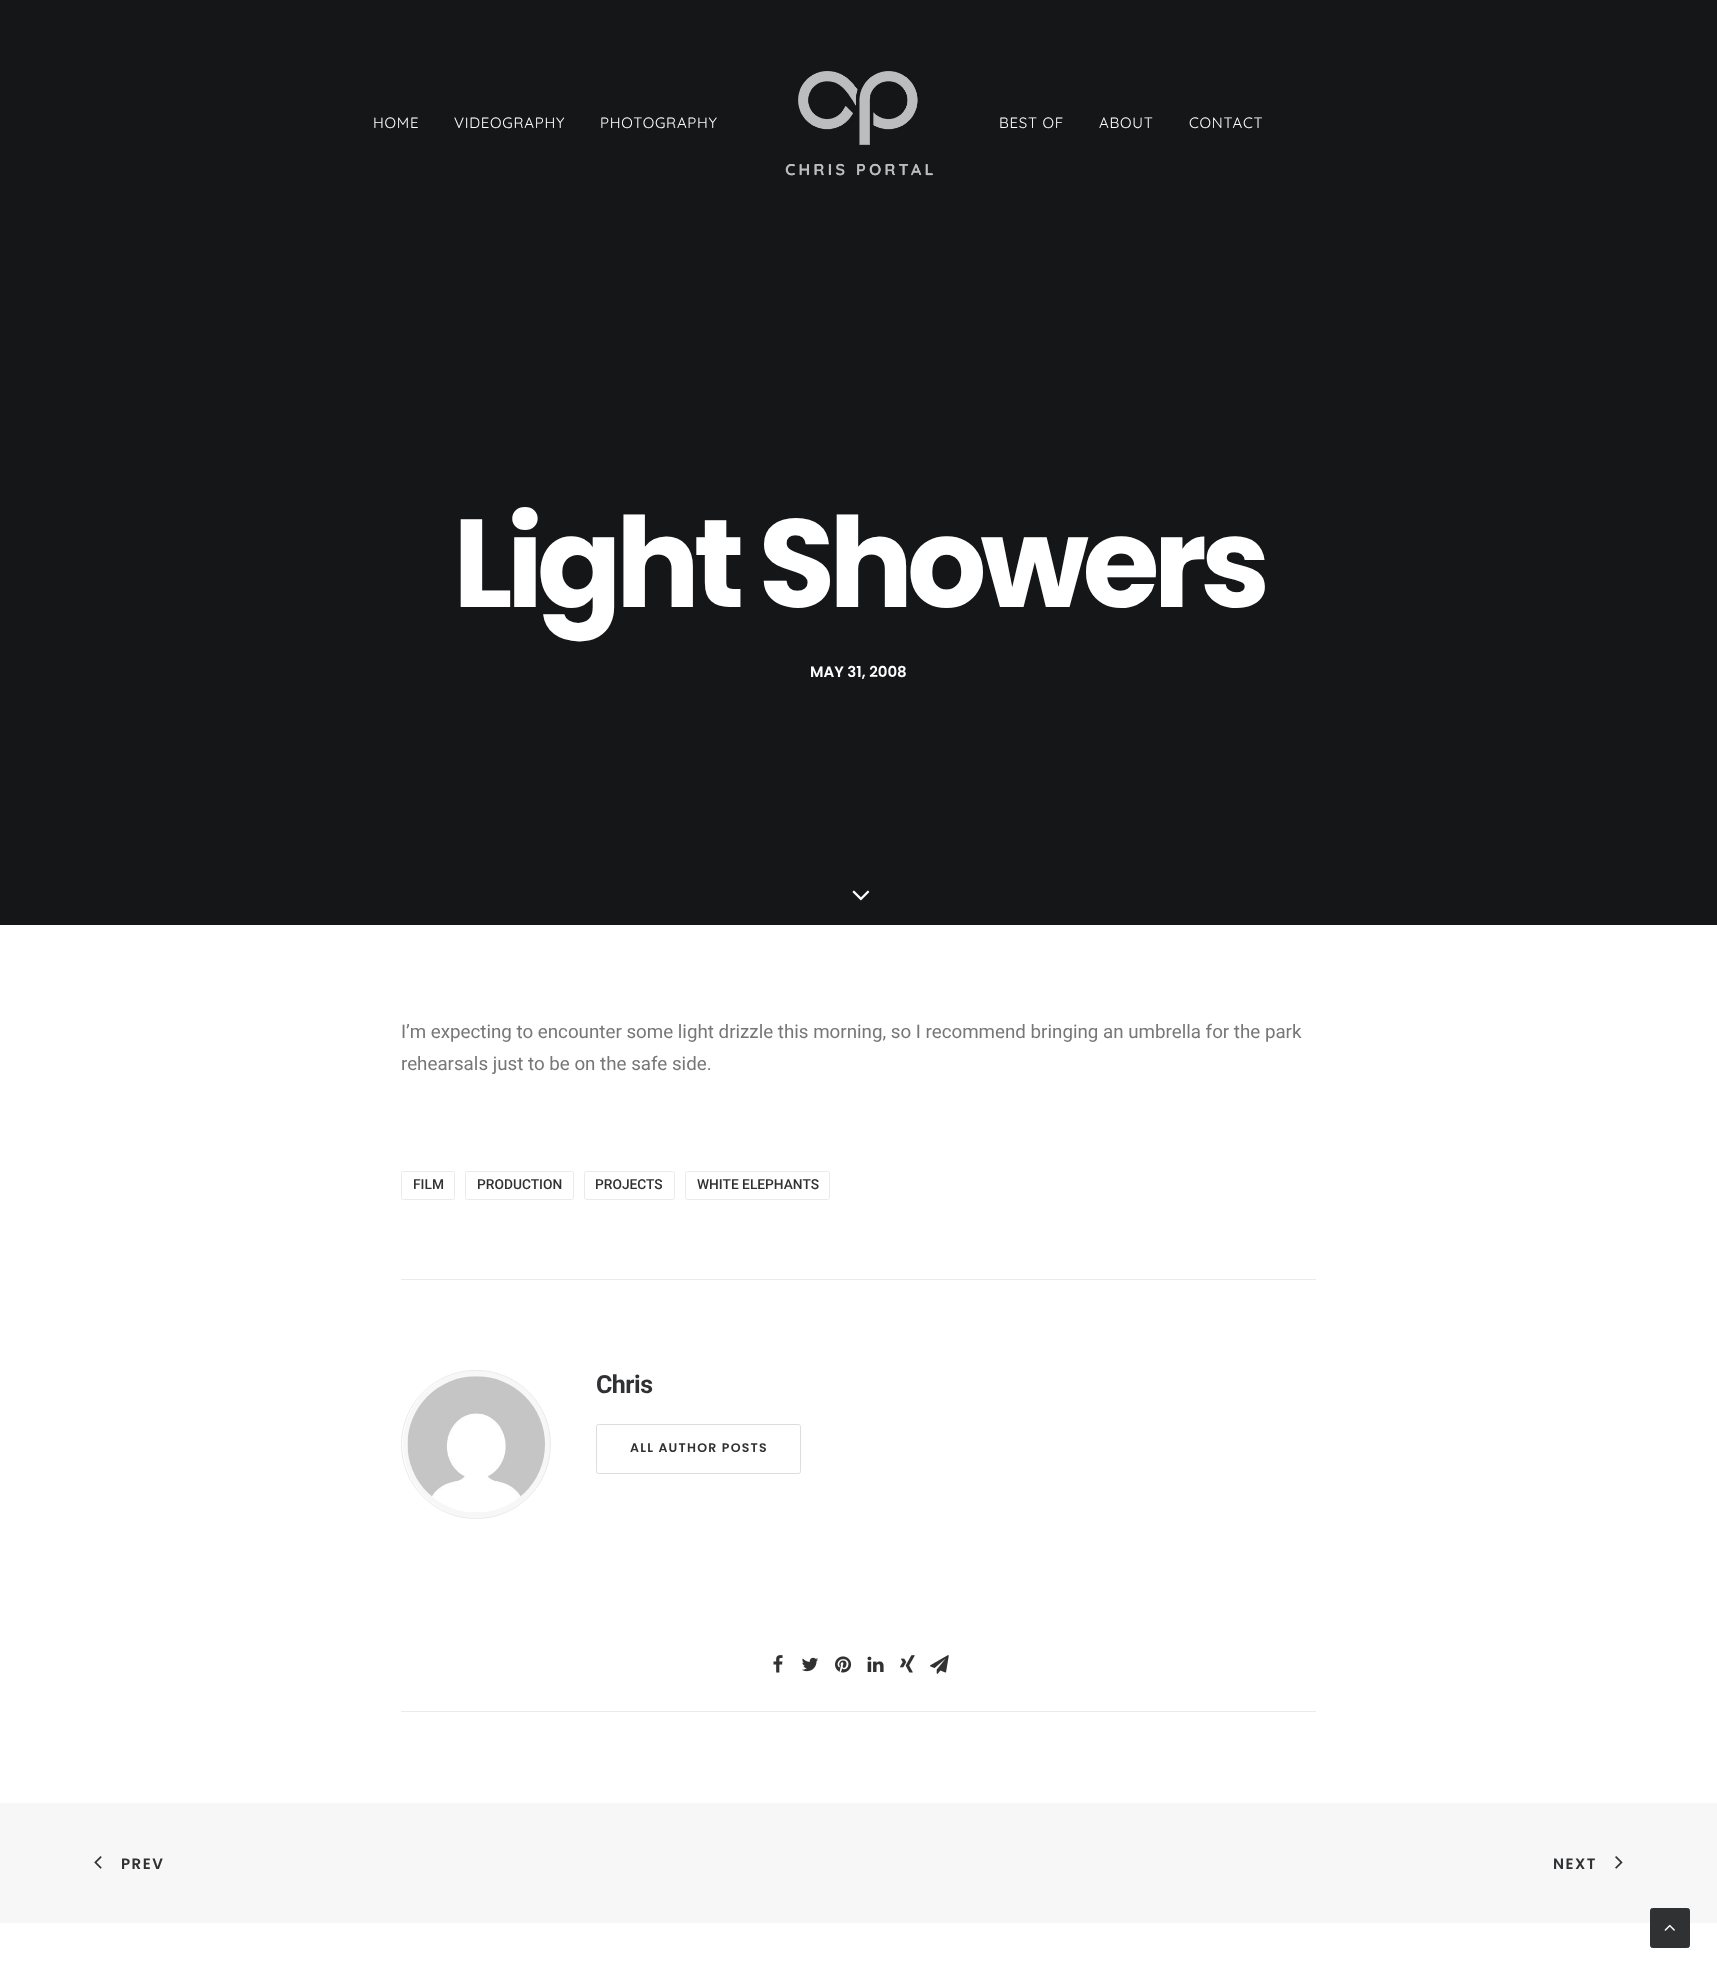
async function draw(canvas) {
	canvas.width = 1717;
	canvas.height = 1974;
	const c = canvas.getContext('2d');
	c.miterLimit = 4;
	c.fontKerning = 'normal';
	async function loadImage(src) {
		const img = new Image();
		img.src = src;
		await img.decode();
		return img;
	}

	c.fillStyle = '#141618';
	c.fillRect(0, 0, 1717, 1974);
	c.letterSpacing = '0.75px';
	c.font = '15px Quicksand';
	c.fillStyle = '#fff';
	for (const [text, x, y] of [
		['HOME', 373, 128],
		['VIDEOGRAPHY', 454, 128],
		['PHOTOGRAPHY', 600, 128],
	]) {
		c.fillText(text, x, y);
	}
	c.drawImage(await loadImage('img1.png'), 785, 71, 149, 105);
	for (const [text, x, y] of [
		['BEST OF', 999, 128],
		['ABOUT', 1099, 128],
		['CONTACT', 1189, 128],
	]) {
		c.fillText(text, x, y);
	}
	c.letterSpacing = '-6.25px';
	c.font = 'bold 125px Poppins';
	c.fillText('Light Showers', 453, 607);
	c.letterSpacing = '0px';
	c.font = '600 15px Poppins';
	c.fillText('MAY 31, 2008', 810, 677);
	c.drawImage(await loadImage('img2.png'), 852, 890, 18, 11);
	c.fillRect(0, 925, 1717, 1049);
	c.font = '18.75px Roboto';
	c.fillStyle = '#777';
	c.fillText('I’m expecting to encounter some light drizzle this morning, so I recommend bringing an umbrella for the park', 401, 1038);
	c.fillText('rehearsals just to be on the safe side.', 401, 1070);
	c.beginPath();
	c.roundRect(401.5, 1171.5, 53, 28, 2);
	c.strokeStyle = '#eaeaea';
	c.stroke();
	c.font = '500 13.75px Roboto';
	c.fillStyle = '#303133';
	c.fillText('FILM', 413, 1189);
	c.beginPath();
	c.roundRect(465.5, 1171.5, 108, 28, 2);
	c.stroke();
	c.fillText('PRODUCTION', 477, 1189);
	c.beginPath();
	c.roundRect(584.5, 1171.5, 90, 28, 2);
	c.stroke();
	c.fillText('PROJECTS', 595, 1189);
	c.beginPath();
	c.roundRect(685.5, 1171.5, 144, 28, 2);
	c.stroke();
	c.fillText('WHITE ELEPHANTS', 697, 1189);
	c.fillStyle = '#eaeaea';
	c.fillRect(401, 1279, 915, 1);
	c.fillStyle = '#f7f7f7';
	c.beginPath();
	c.arc(476.5, 1444.5, 73.5, 0, 2 * Math.PI);
	c.fill();
	c.beginPath();
	c.roundRect(401.5, 1370.5, 149, 148, 74);
	c.stroke();
	c.drawImage(await loadImage('img3.png'), 407, 1376, 138, 136);
	c.letterSpacing = '-0.5px';
	c.font = 'bold 25px Roboto';
	c.fillStyle = '#303133';
	c.fillText('Chris', 596, 1393);
	c.beginPath();
	c.roundRect(596.5, 1424.5, 204, 49, 2);
	c.strokeStyle = '#ddd';
	c.stroke();
	c.letterSpacing = '1.25px';
	c.font = '600 12.5px Poppins';
	c.fillText('ALL AUTHOR POSTS', 630, 1452);
	c.fillStyle = '#eaeaea';
	c.fillRect(401, 1711, 915, 1);
	c.drawImage(await loadImage('img4.png'), 773, 1655, 10, 18);
	c.drawImage(await loadImage('img5.png'), 802, 1657, 16, 15);
	c.drawImage(await loadImage('img6.png'), 835, 1656, 17, 17);
	c.drawImage(await loadImage('img7.png'), 867, 1656, 17, 16);
	c.drawImage(await loadImage('img8.png'), 900, 1655, 15, 18);
	c.drawImage(await loadImage('img9.png'), 930, 1655, 19, 19);
	c.fillStyle = '#f7f7f7';
	c.fillRect(0, 1803, 1717, 120);
	c.drawImage(await loadImage('img10.png'), 94, 1856, 8, 13);
	c.letterSpacing = '1.5px';
	c.font = '600 15px Poppins';
	c.fillStyle = '#303133';
	c.fillText('PREV', 121, 1869);
	c.fillText('NEXT', 1553, 1869);
	c.drawImage(await loadImage('img11.png'), 1615, 1856, 8, 13);
	c.beginPath();
	c.roundRect(1650.5, 1908.5, 39, 39, 2);
	c.fill();
	c.strokeStyle = '#303133';
	c.stroke();
	c.drawImage(await loadImage('img12.png'), 1664, 1924, 11, 7);
}

draw(document.querySelector('canvas'));
